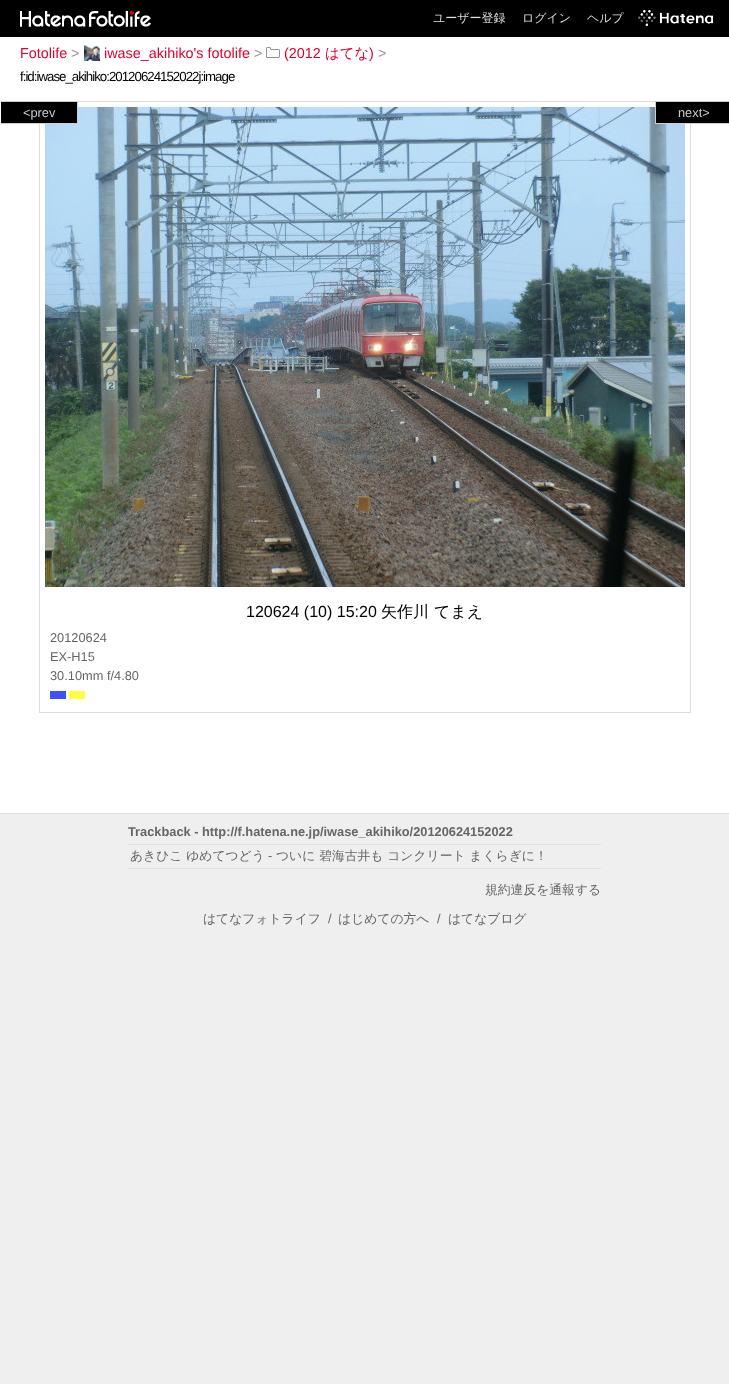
async function draw(canvas) {
	canvas.width = 729;
	canvas.height = 1384;
	const c = canvas.getContext('2d');
	c.miterLimit = 4;
	c.fontKerning = 'normal';
	async function loadImage(src) {
		const img = new Image();
		img.src = src;
		await img.decode();
		return img;
	}

	c.fillStyle = '#efefef';
	c.fillRect(0, 0, 729, 1384);
	c.fillStyle = '#000';
	c.fillRect(0, 0, 729, 37);
	c.drawImage(await loadImage('img1.png'), 20, 11, 66, 16);
	c.drawImage(await loadImage('img2.png'), 89, 11, 62, 16);
	c.font = '500 12px WenQuanYi Zen Hei';
	c.fillStyle = '#ddd';
	for (const [text, x, y] of [
		['ユーザー登録', 433, 22],
		['ログイン', 522, 22],
		['ヘルプ', 587, 22],
	]) {
		c.fillText(text, x, y);
	}
	c.drawImage(await loadImage('img3.png'), 638, 10, 75, 16);
	c.fillStyle = '#fff';
	c.fillRect(0, 37, 729, 776);
	c.font = '14.4px Liberation Sans';
	c.fillStyle = '#de002f';
	c.fillText('Fotolife', 20, 58);
	c.fillStyle = '#999';
	c.fillText('>', 71, 58);
	c.drawImage(await loadImage('img4.png'), 84, 45, 16, 16);
	c.fillStyle = '#de002f';
	c.fillText('iwase_akihiko\'s fotolife', 104, 58);
	c.fillStyle = '#999';
	c.fillText('>', 254, 58);
	c.drawImage(await loadImage('img5.png'), 266, 47, 14, 11);
	c.fillStyle = '#de002f';
	c.fillText('(2012', 284, 58);
	c.font = '500 14.4px WenQuanYi Zen Hei';
	c.fillText('はてな', 325, 58);
	c.font = '14.4px Liberation Sans';
	c.fillText(')', 369, 58);
	c.fillStyle = '#999';
	c.fillText('>', 378, 58);
	c.letterSpacing = '-1px';
	c.font = '13.3px Liberation Sans';
	c.fillStyle = '#000';
	c.fillText('f:id:iwase_akihiko:20120624152022j:image', 20, 81);
	c.fillStyle = '#dedede';
	c.fillRect(0, 813, 729, 1);
	c.strokeStyle = '#dedede';
	c.strokeRect(39.5, 101.5, 651, 611);
	c.drawImage(await loadImage('img6.png'), 45, 107, 640, 480);
	for (const [x, y, w, h, color] of [
		[1, 102, 76, 21, '#000'],
		[1, 101, 77, 1, '#ccc'],
		[77, 101, 1, 23, '#ccc'],
		[1, 123, 77, 1, '#ccc'],
	]) {
		c.fillStyle = color;
		c.fillRect(x, y, w, h);
	}
	c.letterSpacing = '0px';
	c.font = '12.8px Liberation Sans';
	c.fillText('<prev', 23, 117);
	for (const [x, y, w, h, color] of [
		[656, 102, 73, 21, '#000'],
		[655, 101, 74, 1, '#ccc'],
		[655, 123, 74, 1, '#ccc'],
		[655, 101, 1, 23, '#ccc'],
	]) {
		c.fillStyle = color;
		c.fillRect(x, y, w, h);
	}
	c.fillText('next>', 678, 117);
	c.font = '16px Liberation Sans';
	c.fillStyle = '#000';
	c.fillText('120624 (10) 15:20', 246, 617);
	c.font = '500 16px WenQuanYi Zen Hei';
	c.fillText('矢作川', 381, 617);
	c.fillText('てまえ', 434, 617);
	c.font = '12.8px Liberation Sans';
	c.fillStyle = '#666';
	for (const [text, x, y] of [
		['20120624', 50, 642],
		['EX-H15', 50, 661],
		['30.10mm f/4.80', 50, 680],
	]) {
		c.fillText(text, x, y);
	}
	c.fillStyle = '#4050ff';
	c.fillRect(50, 691, 16, 8);
	c.fillStyle = '#ffff40';
	c.fillRect(69, 691, 16, 8);
	c.font = 'bold 12.8px Liberation Sans';
	c.fillStyle = '#666';
	c.fillText('Trackback - http://f.hatena.ne.jp/iwase_akihiko/20120624152022', 128, 836);
	c.fillStyle = '#e1e1e1';
	c.fillRect(128, 844, 473, 1);
	c.fillRect(128, 868, 473, 1);
	c.font = '500 12.8px WenQuanYi Zen Hei';
	c.fillStyle = '#666';
	c.fillText('あきひこ ゆめてつどう', 130, 860);
	c.font = '12.8px Liberation Sans';
	c.fillText('-', 268, 860);
	c.font = '500 12.8px WenQuanYi Zen Hei';
	for (const [text, x, y] of [
		['ついに 碧海古井も コンクリート まくらぎに！', 276, 860],
		['規約違反を通報する', 485, 894],
		['はてなフォトライフ', 203, 923],
	]) {
		c.fillText(text, x, y);
	}
	c.font = '12.8px Liberation Sans';
	c.fillText('/', 328, 923);
	c.font = '500 12.8px WenQuanYi Zen Hei';
	c.fillText('はじめての方へ', 338, 923);
	c.font = '12.8px Liberation Sans';
	c.fillText('/', 437, 923);
	c.font = '500 12.8px WenQuanYi Zen Hei';
	c.fillText('はてなブログ', 448, 923);
}

draw(document.querySelector('canvas'));
